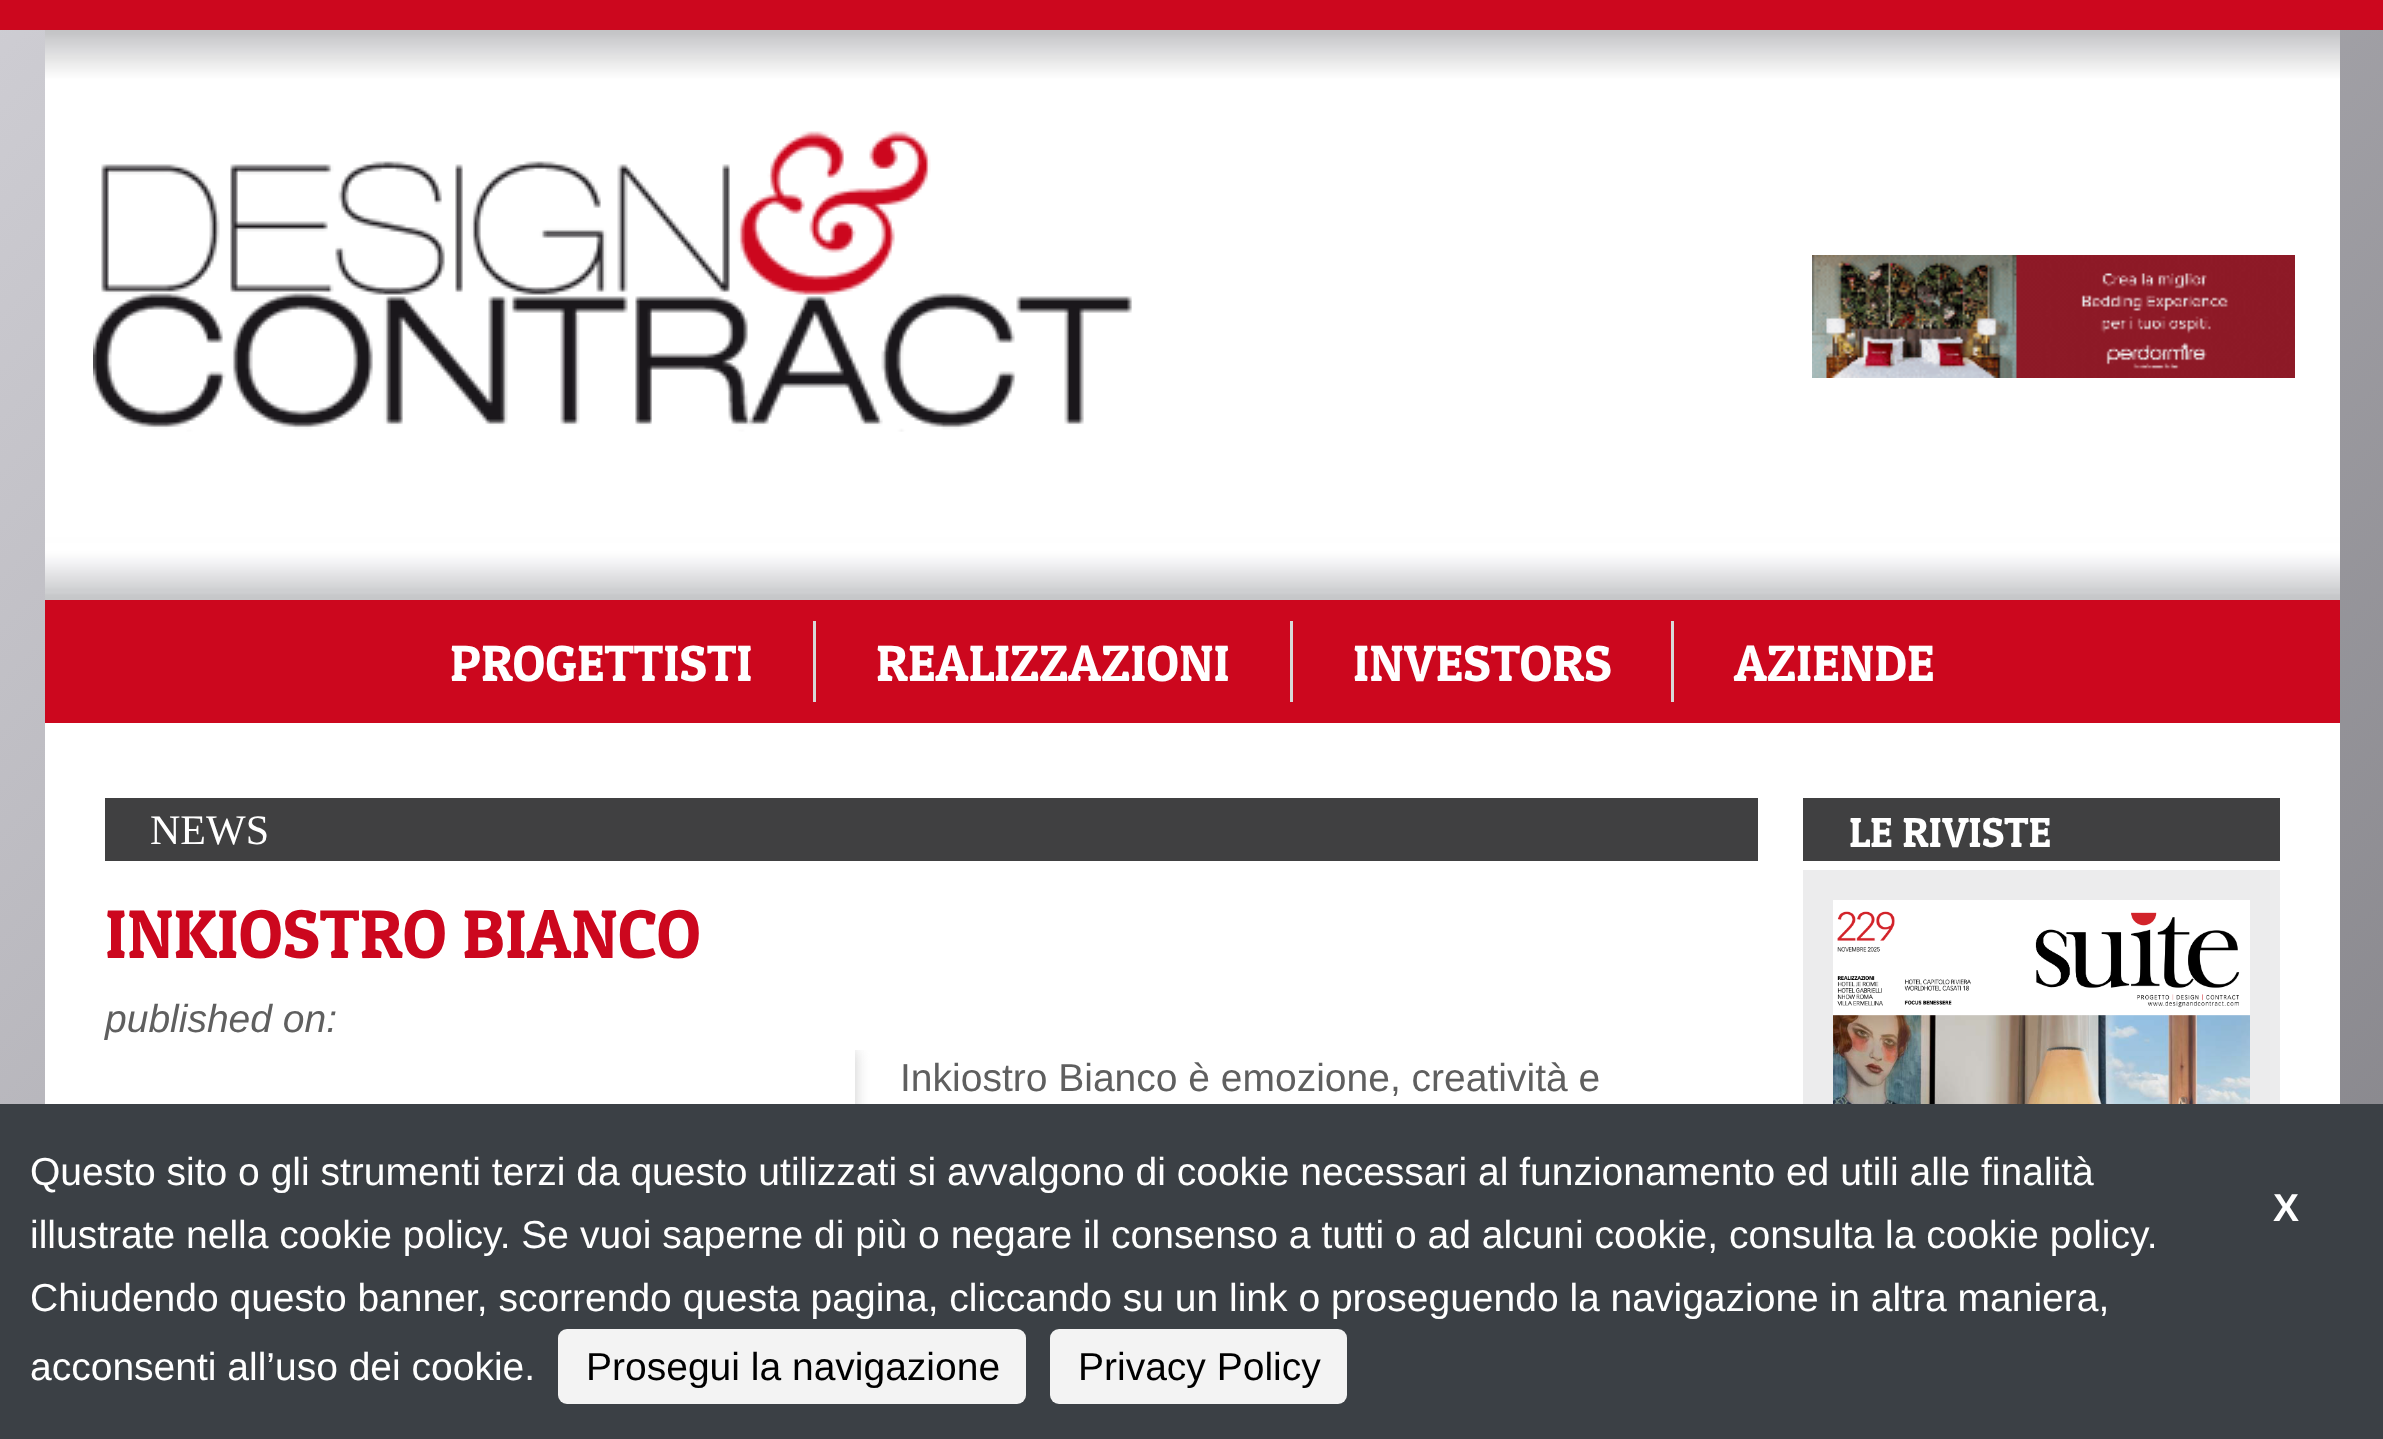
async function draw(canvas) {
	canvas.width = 2383;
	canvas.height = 1439;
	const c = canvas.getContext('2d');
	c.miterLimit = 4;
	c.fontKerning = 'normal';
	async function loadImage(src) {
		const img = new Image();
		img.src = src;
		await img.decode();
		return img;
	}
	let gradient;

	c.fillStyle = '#fff';
	c.fillRect(0, 0, 2383, 1439);
	gradient = c.createLinearGradient(-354, 354, 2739, 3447);
	gradient.addColorStop(0, '#cecdd3');
	gradient.addColorStop(1, '#57565b');
	c.fillStyle = gradient;
	c.fillRect(0, 30, 2383, 1074);
	c.fillStyle = '#cc071e';
	c.fillRect(0, 0, 2383, 30);
	c.fillStyle = '#fff';
	c.fillRect(45, 723, 2295, 381);
	c.drawImage(await loadImage('img1.png'), 45, 30, 2295, 570);
	c.drawImage(await loadImage('img2.png'), 93, 131, 1039, 301);
	c.drawImage(await loadImage('img3.png'), 1812, 255, 483, 123);
	c.fillStyle = '#cc071e';
	c.fillRect(45, 600, 2295, 123);
	c.fillStyle = '#d8d8d8';
	c.fillRect(813, 621, 3, 81);
	c.font = '51px Patua One';
	c.fillStyle = '#fff';
	c.fillText('PROGETTISTI', 450, 681);
	c.fillStyle = '#d8d8d8';
	c.fillRect(1290, 621, 3, 81);
	c.fillStyle = '#fff';
	c.fillText('REALIZZAZIONI', 876, 681);
	c.fillStyle = '#d8d8d8';
	c.fillRect(1671, 621, 3, 81);
	c.fillStyle = '#fff';
	c.fillText('INVESTORS', 1353, 681);
	c.fillText('AZIENDE', 1734, 681);
	c.fillStyle = '#404041';
	c.fillRect(105, 798, 1653, 63);
	c.font = '42px Liberation Serif';
	c.fillStyle = '#fff';
	c.fillText('NEWS', 150, 844);
	c.font = '69px Patua One';
	c.fillStyle = '#cc071e';
	c.fillText('INKIOSTRO BIANCO', 105, 958);
	c.font = 'italic 39px Liberation Sans';
	c.fillStyle = '#5f5f5f';
	c.fillText('published on:', 105, 1032);
	c.save();
	c.beginPath();
	c.rect(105, 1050, 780, 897);
	c.clip();
	c.beginPath();
	c.rect(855, 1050, 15, 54);
	c.clip();
	c.fillStyle = '#ccc';
	c.filter = 'blur(7.5px)';
	c.beginPath();
	c.rect(105, 1050, 750, 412);
	c.fill();
	c.filter = 'none';
	c.restore();
	c.font = '39px Liberation Sans';
	c.fillText('Inkiostro Bianco è emozione, creatività e', 900, 1091);
	c.fillStyle = '#404041';
	c.fillRect(1803, 798, 477, 63);
	c.font = '42px Patua One';
	c.fillStyle = '#fff';
	c.fillText('LE RIVISTE', 1849, 847);
	c.fillStyle = '#ececed';
	c.fillRect(1803, 870, 477, 234);
	c.drawImage(await loadImage('img4.png'), 1833, 900, 417, 204);
	c.fillStyle = '#3b4045';
	c.fillRect(0, 1104, 2383, 335);
	c.font = '39px Liberation Sans';
	c.fillStyle = '#fff';
	c.fillText('Questo sito o gli strumenti terzi da questo utilizzati si avvalgono di cookie necessari al funzionamento ed utili alle finalità', 30, 1185);
	c.font = 'bold 39px Liberation Sans';
	c.fillText('X', 2273, 1221);
	c.font = '39px Liberation Sans';
	for (const [text, x, y] of [
		['illustrate nella cookie policy. Se vuoi saperne di più o negare il consenso a tutti o ad alcuni cookie, consulta la cookie policy.', 30, 1248],
		['Chiudendo questo banner, scorrendo questa pagina, cliccando su un link o proseguendo la navigazione in altra maniera,', 30, 1311],
		['acconsenti all’uso dei cookie.', 30, 1380],
	]) {
		c.fillText(text, x, y);
	}
	c.fillStyle = '#f3f3f3';
	c.beginPath();
	c.roundRect(558, 1329, 468, 75, 9);
	c.fill();
	c.fillStyle = '#000';
	c.fillText('Prosegui la navigazione', 586, 1380);
	c.fillStyle = '#f3f3f3';
	c.beginPath();
	c.roundRect(1050, 1329, 297, 75, 9);
	c.fill();
	c.fillStyle = '#000';
	c.fillText('Privacy Policy', 1078, 1380);
}

draw(document.querySelector('canvas'));
